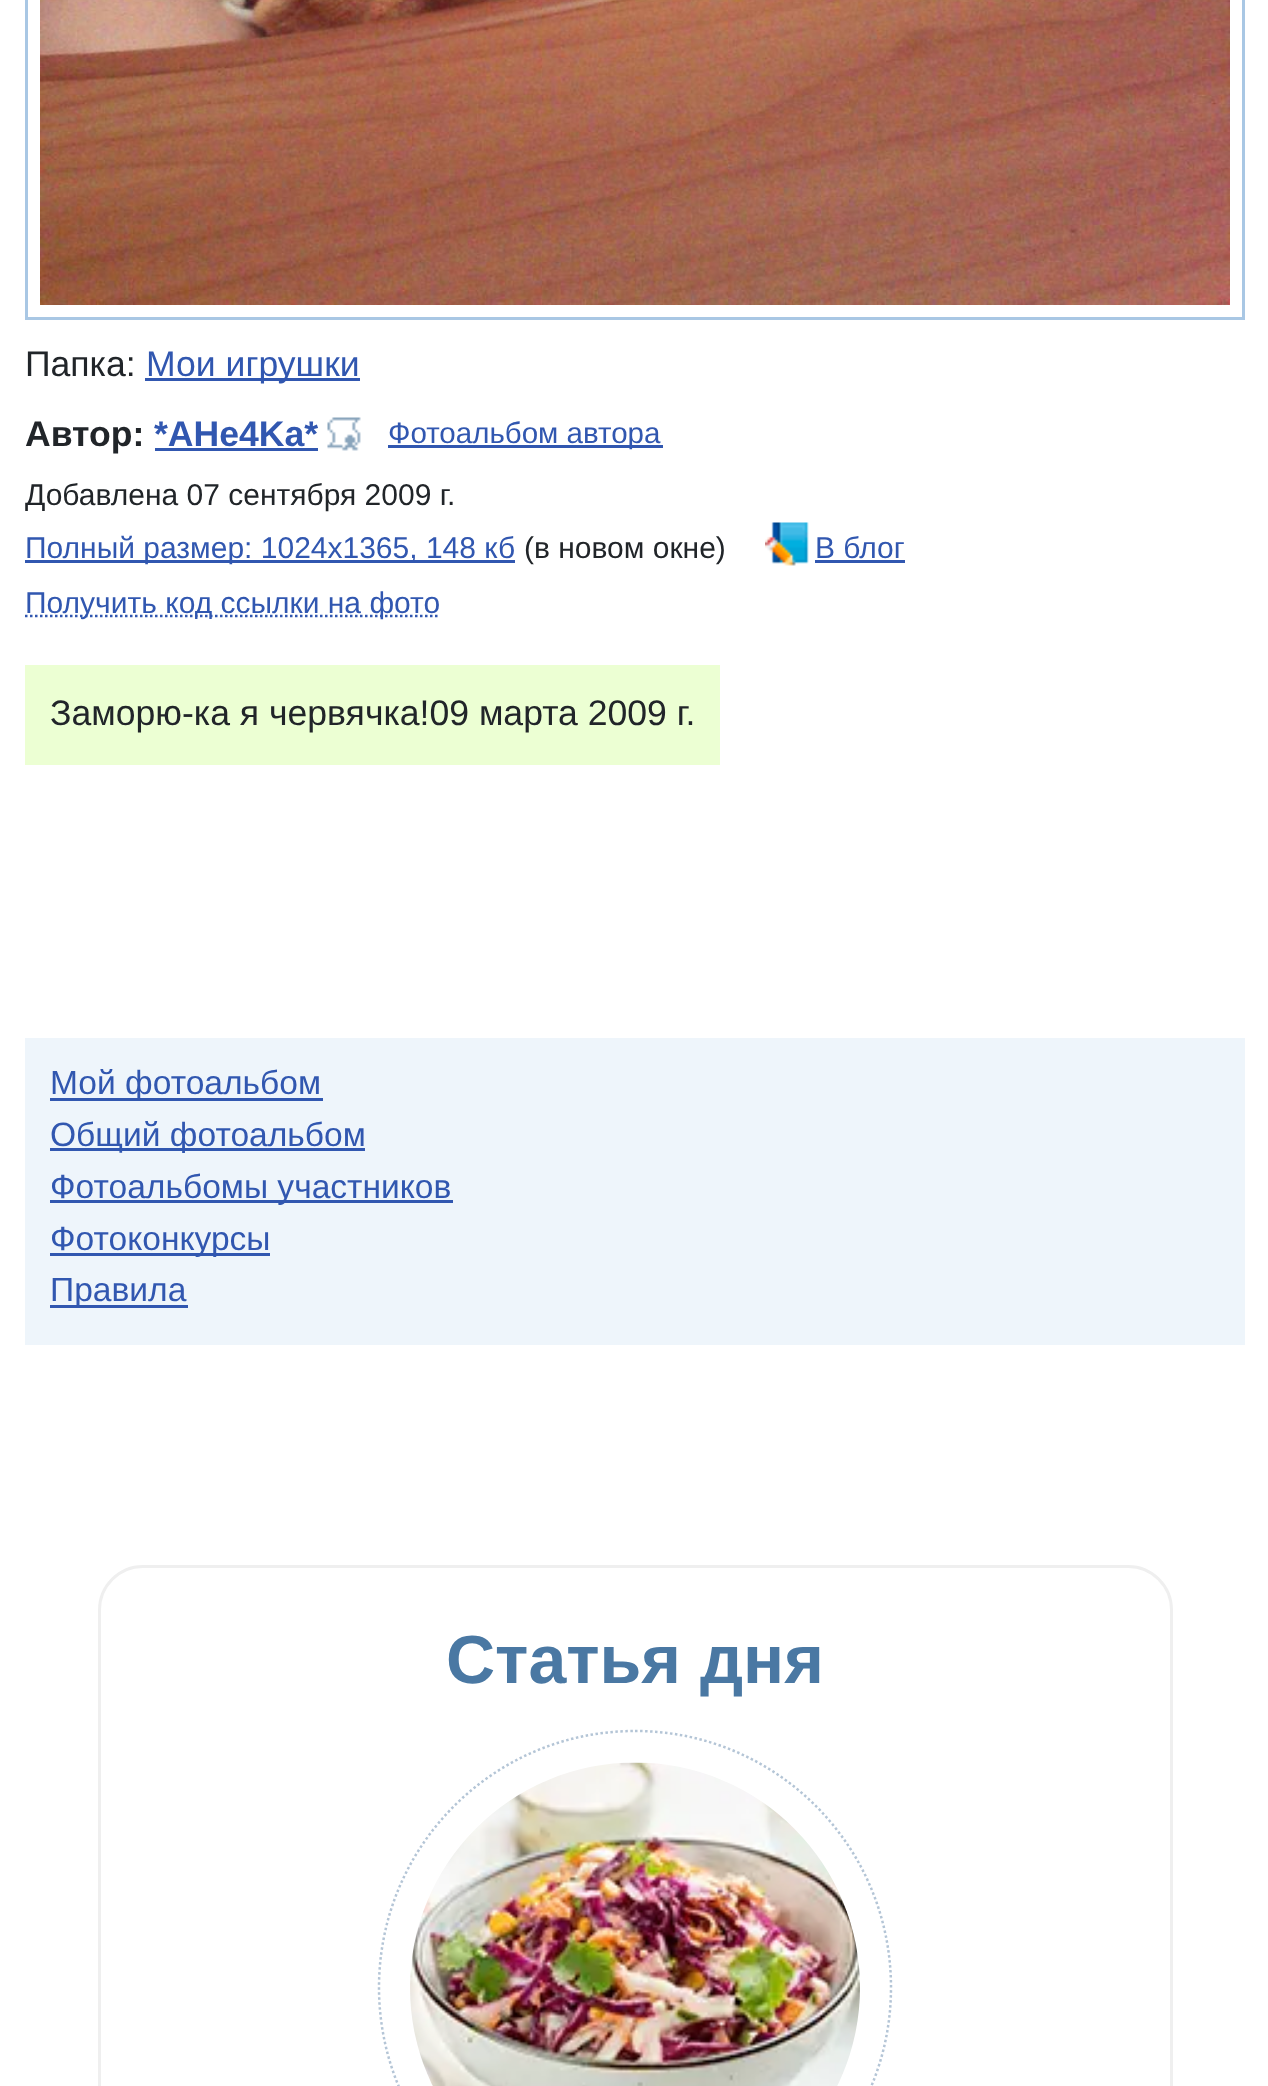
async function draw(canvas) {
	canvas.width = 1268;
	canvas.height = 2086;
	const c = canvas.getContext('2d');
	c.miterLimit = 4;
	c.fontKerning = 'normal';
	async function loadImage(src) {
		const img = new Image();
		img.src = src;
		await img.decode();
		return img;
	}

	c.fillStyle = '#fff';
	c.fillRect(0, 0, 1268, 2086);
	c.strokeStyle = '#a9c7e4';
	c.lineWidth = 3;
	c.strokeRect(26.5, -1.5, 1217, 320);
	c.drawImage(await loadImage('img1.png'), 40, 0, 1190, 305);
	c.font = '35.6px Liberation Sans';
	c.fillStyle = '#212529';
	c.fillText('Папка:', 25, 376);
	c.fillStyle = '#3157b0';
	c.fillRect(145, 378, 215, 3);
	c.fillText('Мои игрушки', 146, 376);
	c.font = 'bold 35.6px Liberation Sans';
	c.fillStyle = '#212529';
	c.fillText('Автор:', 25, 446);
	c.fillStyle = '#3157b0';
	c.fillText('*AHe4Ka*', 154, 446);
	c.fillRect(155, 448, 163, 3);
	c.drawImage(await loadImage('img2.png'), 327, 417, 34, 34);
	c.fillRect(388, 445, 275, 3);
	c.font = '29.5px Liberation Sans';
	c.fillText('Фотоальбом автора', 388, 443);
	c.font = '30px Liberation Sans';
	c.fillStyle = '#212529';
	c.fillText('Добавлена 07 сентября 2009 г.', 25, 505);
	c.fillStyle = '#3157b0';
	c.fillRect(25, 560, 490, 3);
	c.fillText('Полный размер: 1024х1365, 148 кб', 25, 558);
	c.fillStyle = '#212529';
	c.fillText('(в новом окне)', 524, 558);
	c.drawImage(await loadImage('img3.png'), 765, 522, 44, 44);
	c.fillStyle = '#3157b0';
	c.fillText('В блог', 815, 558);
	c.fillRect(815, 560, 90, 3);
	c.beginPath();
	c.moveTo(25, 616);
	c.lineTo(440, 616);
	c.strokeStyle = '#3157b0';
	c.lineWidth = 2.5;
	c.setLineDash([2.5, 2.5]);
	c.stroke();
	c.fillText('Получить код ссылки на фото', 25, 613);
	c.fillStyle = '#ecffd3';
	c.fillRect(25, 665, 695, 100);
	c.font = '35.6px Liberation Sans';
	c.fillStyle = '#212529';
	c.fillText('Заморю-ка я червячка!09 марта 2009 г.', 50, 725);
	c.fillStyle = '#eef5fb';
	c.fillRect(25, 1038, 1220, 307);
	c.fillStyle = '#3157b0';
	c.fillRect(50, 1098, 273, 3);
	c.font = '33.6px Liberation Sans';
	c.fillText('Мой фотоальбом', 50, 1094);
	c.fillRect(50, 1148, 315, 3);
	c.fillText('Общий фотоальбом', 50, 1146);
	c.fillRect(50, 1200, 403, 3);
	c.fillText('Фотоальбомы участников', 50, 1198);
	c.fillRect(50, 1253, 220, 3);
	c.fillText('Фотоконкурсы', 50, 1250);
	c.fillRect(50, 1305, 138, 3);
	c.fillText('Правила', 50, 1301);
	c.beginPath();
	c.roundRect(99.5, 1566.5, 1072, 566, 43.5);
	c.strokeStyle = '#efefef';
	c.lineWidth = 3;
	c.setLineDash([]);
	c.stroke();
	c.font = 'bold 68px Liberation Sans';
	c.fillStyle = '#4a78a3';
	c.fillText('Статья дня', 446, 1683);
	c.beginPath();
	c.moveTo(635, 1731);
	c.bezierCurveTo(776.5, 1731, 891, 1846, 891, 1987.5);
	c.bezierCurveTo(891, 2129, 776.5, 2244, 635, 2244);
	c.bezierCurveTo(493.5, 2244, 379, 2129, 379, 1987.5);
	c.bezierCurveTo(379, 1846, 493.5, 1731, 635, 1731);
	c.closePath();
	c.strokeStyle = '#b4c5d6';
	c.lineWidth = 2.5;
	c.setLineDash([2.5, 2.5]);
	c.stroke();
	c.drawImage(await loadImage('img4.png'), 410, 1762, 450, 324);
}

draw(document.querySelector('canvas'));
